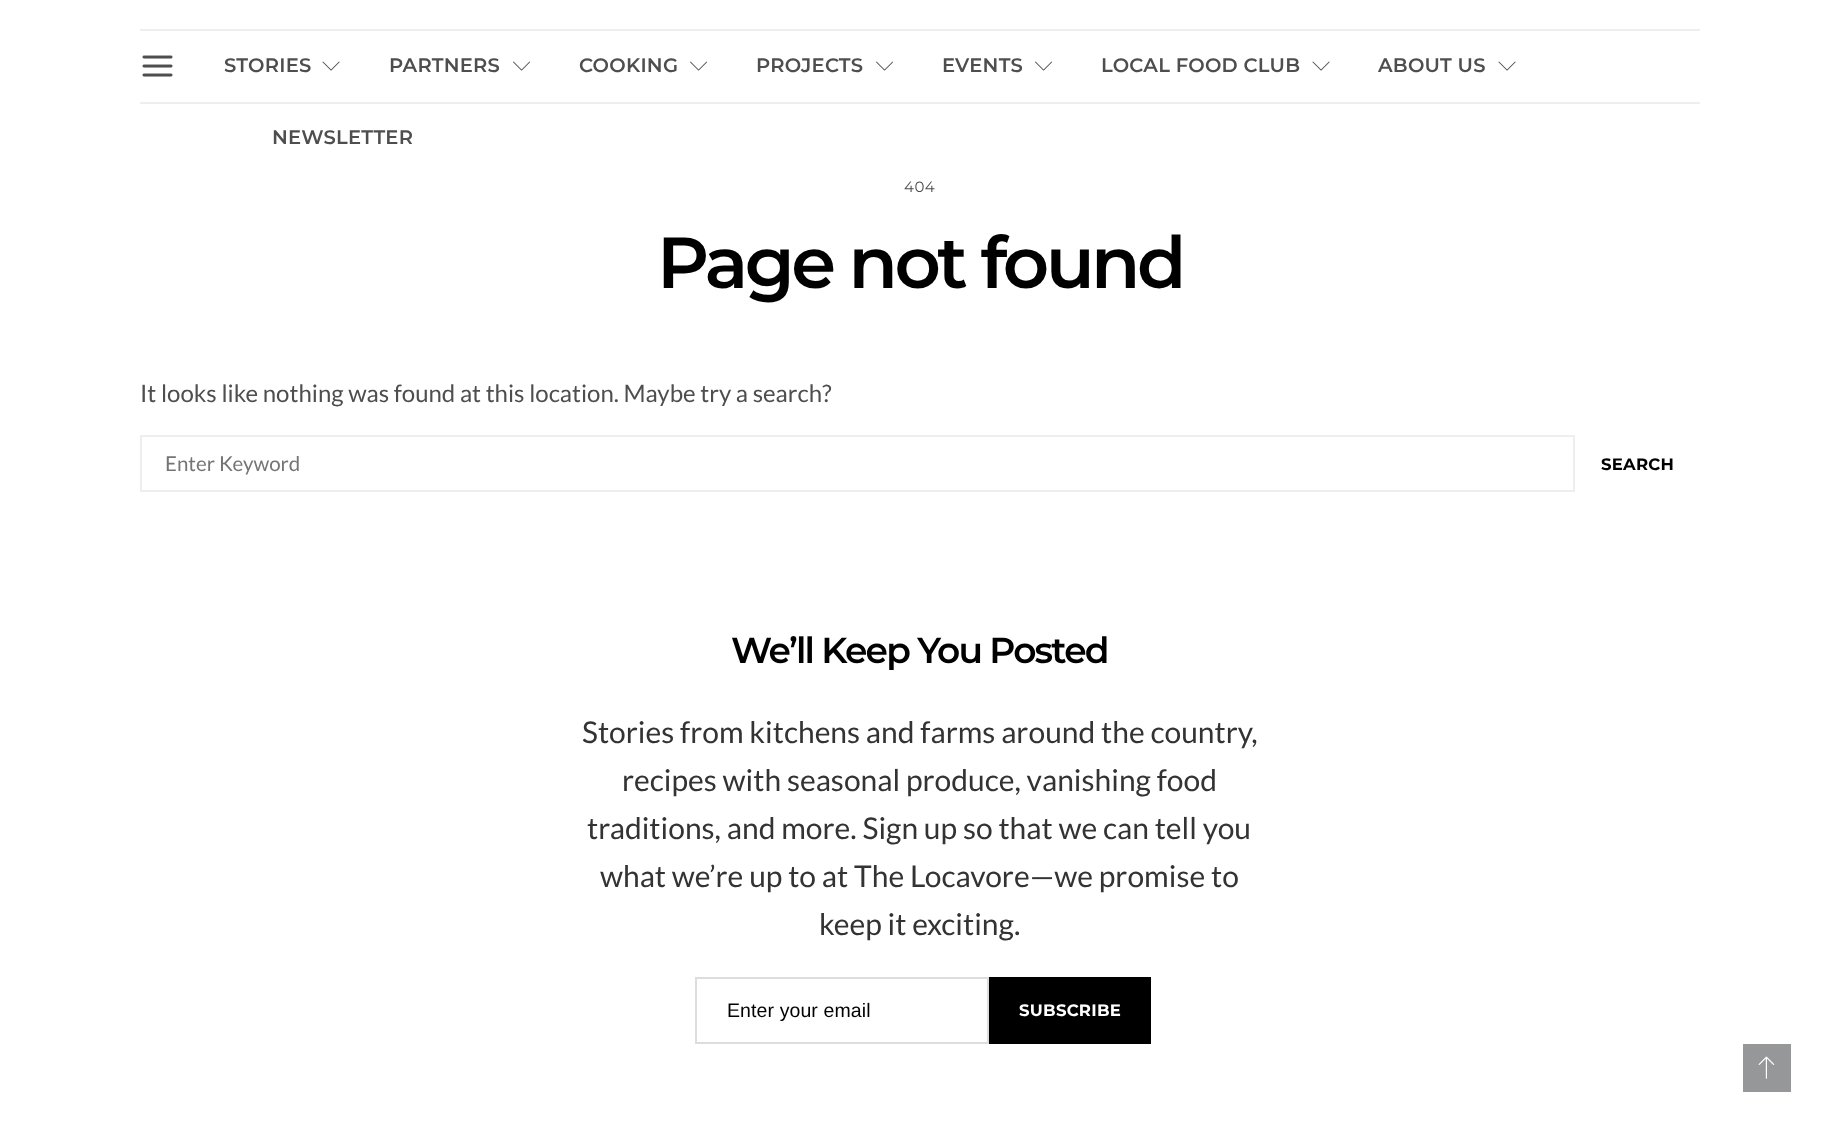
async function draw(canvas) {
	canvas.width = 1838;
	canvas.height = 1139;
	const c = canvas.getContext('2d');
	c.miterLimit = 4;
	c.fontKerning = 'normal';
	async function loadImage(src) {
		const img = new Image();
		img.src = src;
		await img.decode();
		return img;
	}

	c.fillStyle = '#fff';
	c.fillRect(0, 0, 1838, 1139);
	c.fillStyle = '#eee';
	c.fillRect(140, 29, 1560, 2);
	c.fillRect(140, 102, 1560, 2);
	c.drawImage(await loadImage('img1.png'), 142, 55, 31, 22);
	c.letterSpacing = '0.25px';
	c.font = '600 19.5px Montserrat';
	c.fillStyle = '#4e4e4e';
	c.fillText('STORIES', 224, 72);
	c.drawImage(await loadImage('img2.png'), 322, 61, 18, 10);
	c.fillText('PARTNERS', 389, 72);
	c.drawImage(await loadImage('img3.png'), 513, 61, 17, 10);
	c.fillText('COOKING', 579, 72);
	c.drawImage(await loadImage('img3.png'), 690, 61, 17, 10);
	c.fillText('PROJECTS', 756, 72);
	c.drawImage(await loadImage('img3.png'), 876, 61, 17, 10);
	c.fillText('EVENTS', 942, 72);
	c.drawImage(await loadImage('img3.png'), 1035, 61, 17, 10);
	c.fillText('LOCAL FOOD CLUB', 1101, 72);
	c.drawImage(await loadImage('img2.png'), 1312, 61, 18, 10);
	c.fillText('ABOUT US', 1378, 72);
	c.drawImage(await loadImage('img2.png'), 1498, 61, 18, 10);
	c.fillText('NEWSLETTER', 272, 144);
	c.letterSpacing = '0.5px';
	c.font = '15px Montserrat';
	c.fillText('404', 904, 192);
	c.letterSpacing = '-3.6px';
	c.font = '600 72px Montserrat';
	c.fillStyle = '#000';
	c.fillText('Page not found', 657, 288);
	c.letterSpacing = '0px';
	c.font = '24px Lato';
	c.fillStyle = '#4e4e4e';
	c.fillText('It looks like nothing was found at this location. Maybe try a search?', 140, 402);
	c.strokeStyle = '#eee';
	c.lineWidth = 2;
	c.strokeRect(141, 436, 1433, 55);
	c.font = '20.5px Lato';
	c.fillStyle = '#757575';
	c.fillText('Enter Keyword', 165, 471);
	c.letterSpacing = '0.25px';
	c.font = 'bold 16.5px Montserrat';
	c.fillStyle = '#000';
	c.fillText('SEARCH', 1601, 470);
	c.letterSpacing = '-1.8px';
	c.font = '600 36px Montserrat';
	c.fillText('We’ll Keep You Posted', 731, 663);
	c.letterSpacing = '0px';
	c.font = '30px Lato';
	c.fillStyle = '#333';
	for (const [text, x, y] of [
		['Stories from kitchens and farms around the country,', 582, 743],
		['recipes with seasonal produce, vanishing food', 622, 791],
		['traditions, and more. Sign up so that we can tell you', 587, 839],
		['what we’re up to at The Locavore—we promise to', 600, 887],
		['keep it exciting.', 819, 935],
	]) {
		c.fillText(text, x, y);
	}
	c.strokeStyle = '#ddd';
	c.strokeRect(696, 978, 292, 65);
	c.letterSpacing = '0.1px';
	c.font = '19.5px Liberation Sans';
	c.fillStyle = '#000';
	c.fillText('Enter your email', 727, 1017);
	c.fillRect(989, 977, 162, 67);
	c.letterSpacing = '0.25px';
	c.font = 'bold 16.5px Montserrat';
	c.fillStyle = '#fff';
	c.fillText('SUBSCRIBE', 1019, 1016);
	c.fillStyle = '#969798';
	c.fillRect(1743, 1044, 48, 48);
	c.drawImage(await loadImage('img4.png'), 1758, 1056, 17, 23);
}

draw(document.querySelector('canvas'));
